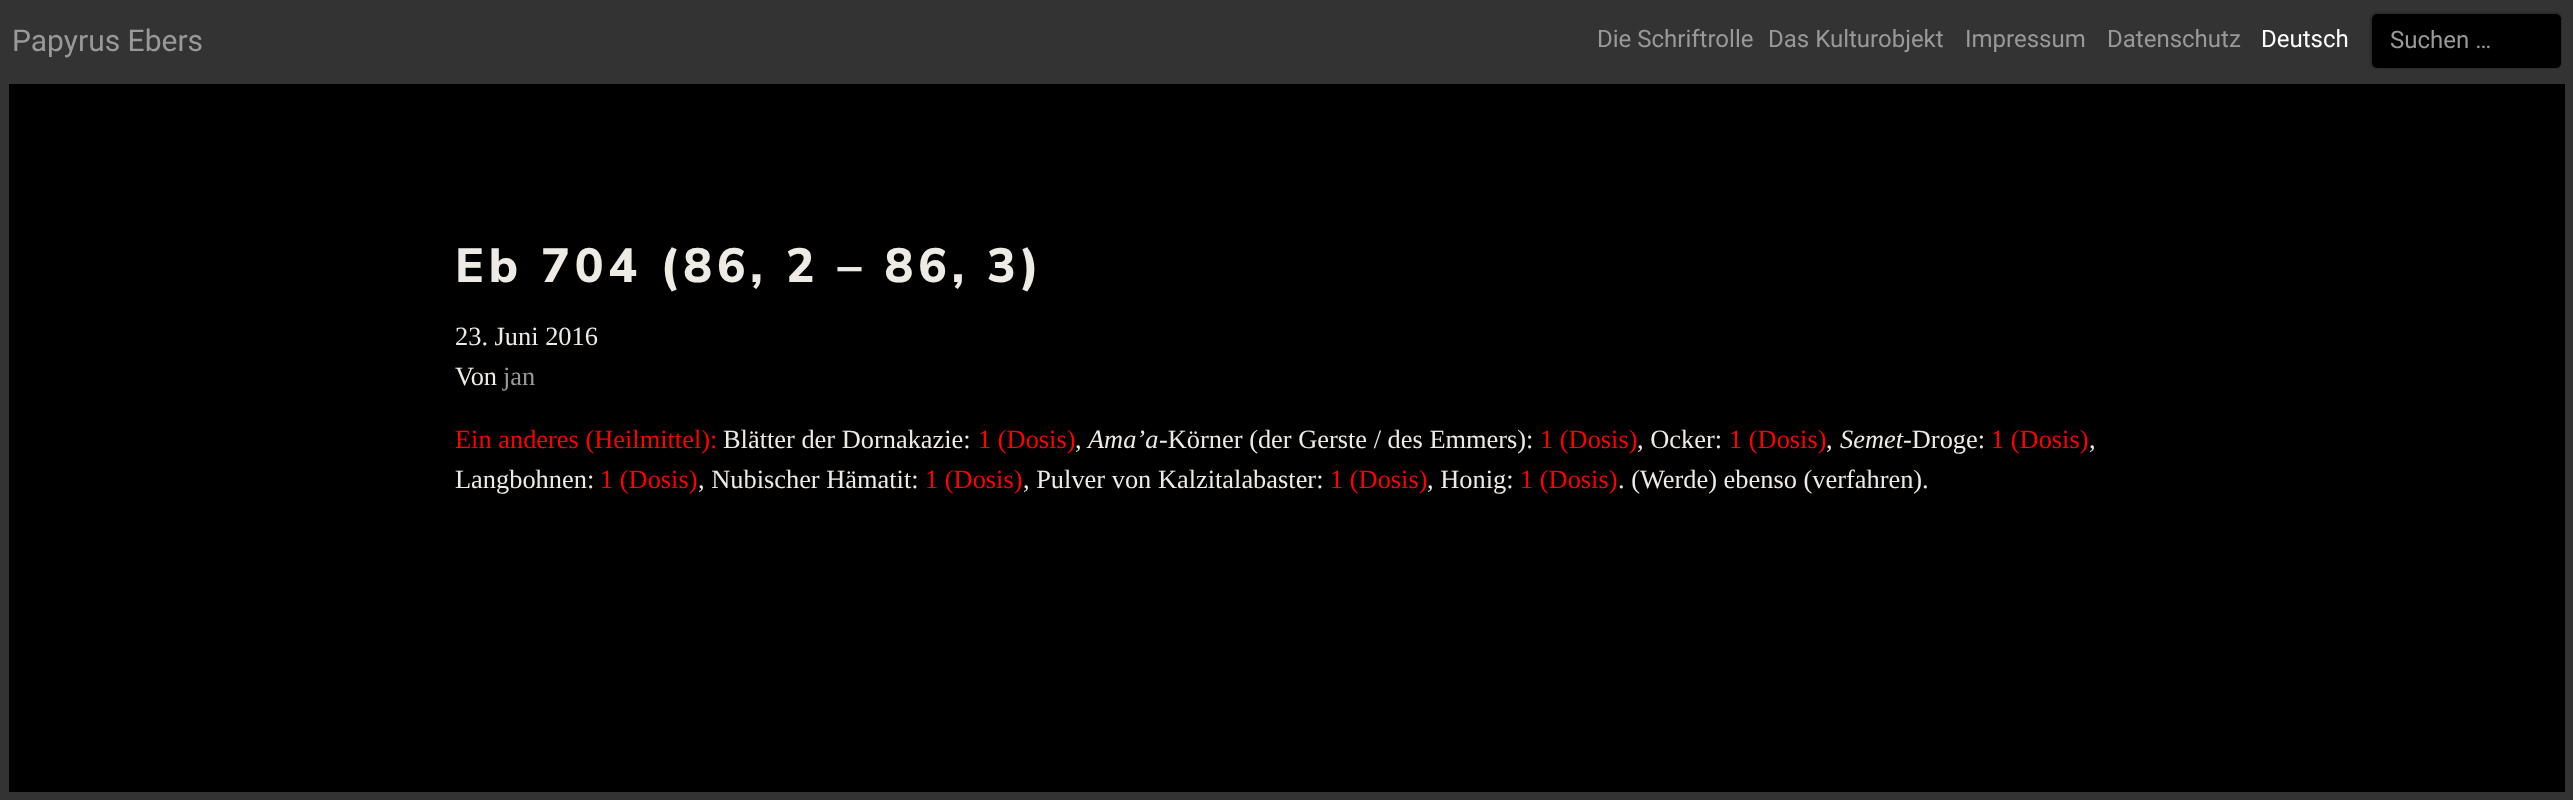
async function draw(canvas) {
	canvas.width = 2573;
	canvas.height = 800;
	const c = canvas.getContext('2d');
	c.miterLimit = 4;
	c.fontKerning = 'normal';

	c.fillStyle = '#000';
	c.fillRect(0, 0, 2573, 800);
	c.fillStyle = '#333';
	c.fillRect(0, 0, 2573, 84);
	c.font = '30px Roboto';
	c.fillStyle = '#999';
	c.fillText('Papyrus Ebers', 12, 51);
	c.font = '24px Roboto';
	for (const [text, x, y] of [
		['Die Schriftrolle', 1597, 47],
		['Das Kulturobjekt', 1768, 47],
		['Impressum', 1965, 47],
		['Datenschutz', 2107, 47],
	]) {
		c.fillText(text, x, y);
	}
	c.fillStyle = '#fff';
	c.fillText('Deutsch', 2261, 47);
	c.fillStyle = '#000';
	c.beginPath();
	c.roundRect(2372, 14, 189, 54, 5);
	c.fill();
	c.beginPath();
	c.roundRect(2371, 13, 190, 55, 5);
	c.strokeStyle = '#00000026';
	c.lineWidth = 2;
	c.stroke();
	c.fillStyle = '#999';
	c.fillText('Suchen …', 2390, 48);
	c.fillStyle = '#333';
	c.fillRect(0, 84, 9, 708);
	c.letterSpacing = '4.8px';
	c.font = '800 48px Nunito Sans';
	c.fillStyle = '#eeebe5';
	c.fillText('Eb 704 (86, 2 – 86, 3)', 455, 282);
	c.letterSpacing = '0px';
	c.font = '26.4px Liberation Serif';
	c.fillText('23. Juni 2016', 455, 345);
	c.fillText('Von', 455, 385);
	c.fillStyle = '#999';
	c.fillText('jan', 503, 385);
	c.fillStyle = '#f00';
	c.fillText('Ein anderes (Heilmittel):', 455, 448);
	c.fillStyle = '#eeebe5';
	c.fillText('Blätter der Dornakazie:', 723, 448);
	c.fillStyle = '#f00';
	c.fillText('1 (Dosis)', 978, 448);
	c.fillStyle = '#eeebe5';
	c.fillText(',', 1075, 448);
	c.font = 'italic 26.4px Liberation Serif';
	c.fillText('Ama’a', 1088, 448);
	c.font = '26.4px Liberation Serif';
	c.fillText('-Körner (der Gerste / des Emmers):', 1159, 448);
	c.fillStyle = '#f00';
	c.fillText('1 (Dosis)', 1540, 448);
	c.fillStyle = '#eeebe5';
	c.fillText(', Ocker:', 1637, 448);
	c.fillStyle = '#f00';
	c.fillText('1 (Dosis)', 1729, 448);
	c.fillStyle = '#eeebe5';
	c.fillText(',', 1826, 448);
	c.font = 'italic 26.4px Liberation Serif';
	c.fillText('Semet', 1840, 448);
	c.font = '26.4px Liberation Serif';
	c.fillText('-Droge:', 1903, 448);
	c.fillStyle = '#f00';
	c.fillText('1 (Dosis)', 1991, 448);
	c.fillStyle = '#eeebe5';
	c.fillText(',', 2089, 448);
	c.fillText('Langbohnen:', 455, 488);
	c.fillStyle = '#f00';
	c.fillText('1 (Dosis)', 600, 488);
	c.fillStyle = '#eeebe5';
	c.fillText(', Nubischer Hämatit:', 698, 488);
	c.fillStyle = '#f00';
	c.fillText('1 (Dosis)', 925, 488);
	c.fillStyle = '#eeebe5';
	c.fillText(', Pulver von Kalzitalabaster:', 1023, 488);
	c.fillStyle = '#f00';
	c.fillText('1 (Dosis)', 1330, 488);
	c.fillStyle = '#eeebe5';
	c.fillText(', Honig:', 1427, 488);
	c.fillStyle = '#f00';
	c.fillText('1 (Dosis)', 1520, 488);
	c.fillStyle = '#eeebe5';
	c.fillText('. (Werde) ebenso (verfahren).', 1618, 488);
	c.fillStyle = '#333';
	c.fillRect(2565, 84, 8, 716);
	c.fillRect(0, 792, 2573, 8);
}

draw(document.querySelector('canvas'));
